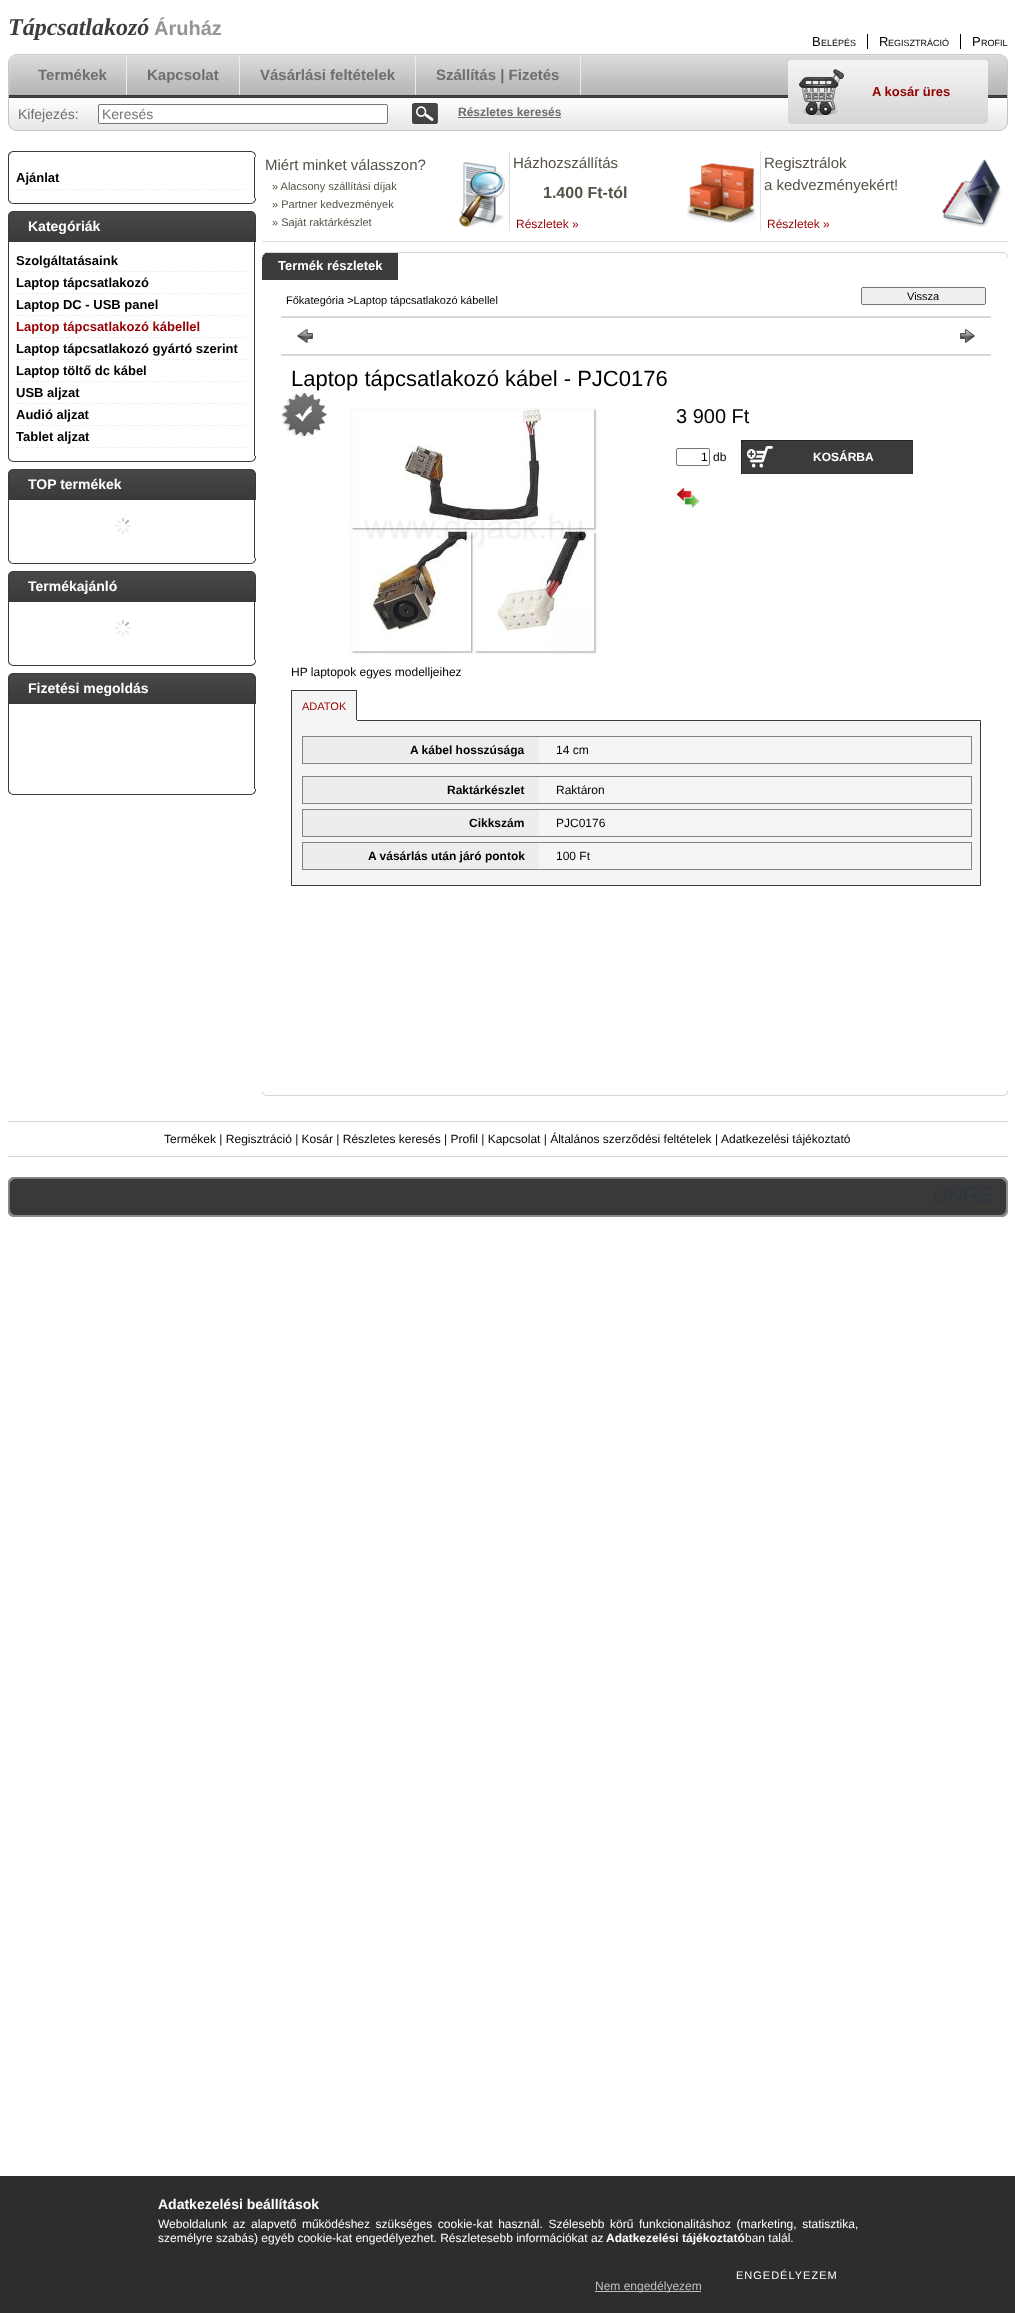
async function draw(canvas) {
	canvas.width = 1015;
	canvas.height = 2313;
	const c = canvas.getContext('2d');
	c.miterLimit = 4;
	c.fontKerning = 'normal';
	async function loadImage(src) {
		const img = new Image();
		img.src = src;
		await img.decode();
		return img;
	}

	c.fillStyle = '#fff';
	c.fillRect(0, 0, 1015, 2313);
	c.font = 'italic bold 24px Liberation Serif';
	c.fillStyle = '#3d3d3d';
	c.fillText('Tápcsatlakozó', 8, 35);
	c.font = 'bold 20px Liberation Sans';
	c.fillStyle = '#959595';
	c.fillText('Áruház', 154, 35);
	c.font = '13px Liberation Sans';
	c.fillStyle = '#000';
	c.fillText('B', 812, 46);
	c.font = '9px Liberation Sans';
	c.fillText('ELÉPÉS', 821, 46);
	c.fillRect(867, 34, 1, 15);
	c.font = '13px Liberation Sans';
	c.fillText('R', 879, 46);
	c.font = '9px Liberation Sans';
	c.fillText('EGISZTRÁCIÓ', 888, 46);
	c.fillRect(960, 34, 1, 15);
	c.font = '13px Liberation Sans';
	c.fillText('P', 972, 46);
	c.font = '9px Liberation Sans';
	c.fillText('ROFIL', 981, 46);
	c.drawImage(await loadImage('img1.png'), 8, 54, 10, 77);
	c.drawImage(await loadImage('img2.png'), 18, 54, 980, 77);
	c.fillStyle = '#ececec';
	c.fillRect(126, 55, 1, 40);
	c.font = 'bold 15px Liberation Sans';
	c.fillStyle = '#6c6e71';
	c.fillText('Termékek', 38, 80);
	c.fillStyle = '#ececec';
	c.fillRect(239, 55, 1, 40);
	c.fillStyle = '#6c6e71';
	c.fillText('Kapcsolat', 147, 80);
	c.fillStyle = '#ececec';
	c.fillRect(415, 55, 1, 40);
	c.fillStyle = '#6c6e71';
	c.fillText('Vásárlási feltételek', 260, 80);
	c.fillStyle = '#ececec';
	c.fillRect(580, 55, 1, 40);
	c.fillStyle = '#6c6e71';
	c.fillText('Szállítás | Fizetés', 436, 80);
	c.font = '14px Liberation Sans';
	c.fillText('Kifejezés:', 18, 119);
	c.fillStyle = '#fff';
	c.beginPath();
	c.roundRect(98.5, 104.5, 289, 19, 1.5);
	c.fill();
	c.strokeStyle = '#767676';
	c.stroke();
	c.fillStyle = '#757575';
	c.fillText('Keresés', 102, 119);
	c.drawImage(await loadImage('img3.png'), 412, 103, 26, 21);
	c.font = 'bold 12px Liberation Sans';
	c.fillStyle = '#6c6e71';
	c.fillText('Részletes keresés', 458, 116);
	c.fillRect(458, 117, 103, 1);
	c.drawImage(await loadImage('img4.png'), 788, 59, 6, 65);
	c.drawImage(await loadImage('img5.png'), 794, 59, 188, 65);
	c.drawImage(await loadImage('img6.png'), 799, 69, 45, 47);
	c.font = 'bold 13px Liberation Sans';
	c.fillStyle = '#960000';
	c.fillText('A kosár üres', 872, 96);
	c.drawImage(await loadImage('img7.png'), 982, 59, 6, 65);
	c.drawImage(await loadImage('img8.png'), 998, 54, 10, 77);
	c.drawImage(await loadImage('img9.png'), 262, 1091, 746, 5);
	c.drawImage(await loadImage('img10.png'), 8, 151, 248, 6);
	c.fillStyle = '#3a3a3a';
	c.fillRect(254, 157, 1, 41);
	c.fillRect(8, 157, 1, 41);
	c.beginPath();
	c.moveTo(16, 189.5);
	c.lineTo(246, 189.5);
	c.strokeStyle = '#efefef';
	c.setLineDash([3, 2.04]);
	c.stroke();
	c.fillStyle = '#000';
	c.fillText('Ajánlat', 16, 182);
	c.drawImage(await loadImage('img11.png'), 8, 198, 248, 6);
	c.drawImage(await loadImage('img12.png'), 8, 211, 248, 31);
	c.font = 'bold 14px Liberation Sans';
	c.fillStyle = '#fff';
	c.fillText('Kategóriák', 28, 231);
	c.fillStyle = '#3a3a3a';
	c.fillRect(254, 242, 1, 214);
	c.fillRect(8, 242, 1, 214);
	c.beginPath();
	c.moveTo(16, 271.5);
	c.lineTo(246, 271.5);
	c.stroke();
	c.font = 'bold 13px Liberation Sans';
	c.fillStyle = '#000';
	c.fillText('Szolgáltatásaink', 16, 265);
	c.beginPath();
	c.moveTo(16, 293.5);
	c.lineTo(246, 293.5);
	c.stroke();
	c.fillText('Laptop tápcsatlakozó', 16, 287);
	c.beginPath();
	c.moveTo(16, 315.5);
	c.lineTo(246, 315.5);
	c.stroke();
	c.fillText('Laptop DC - USB panel', 16, 309);
	c.beginPath();
	c.moveTo(16, 337.5);
	c.lineTo(246, 337.5);
	c.stroke();
	c.fillStyle = '#960000';
	c.fillText('Laptop tápcsatlakozó kábellel', 16, 331);
	c.beginPath();
	c.moveTo(16, 359.5);
	c.lineTo(246, 359.5);
	c.stroke();
	c.fillStyle = '#000';
	c.fillText('Laptop tápcsatlakozó gyártó szerint', 16, 353);
	c.beginPath();
	c.moveTo(16, 381.5);
	c.lineTo(246, 381.5);
	c.stroke();
	c.fillText('Laptop töltő dc kábel', 16, 375);
	c.beginPath();
	c.moveTo(16, 403.5);
	c.lineTo(246, 403.5);
	c.stroke();
	c.fillText('USB aljzat', 16, 397);
	c.beginPath();
	c.moveTo(16, 425.5);
	c.lineTo(246, 425.5);
	c.stroke();
	c.fillText('Audió aljzat', 16, 419);
	c.beginPath();
	c.moveTo(16, 447.5);
	c.lineTo(246, 447.5);
	c.stroke();
	c.fillText('Tablet aljzat', 16, 441);
	c.drawImage(await loadImage('img11.png'), 8, 456, 248, 6);
	c.drawImage(await loadImage('img12.png'), 8, 469, 248, 31);
	c.font = 'bold 14px Liberation Sans';
	c.fillStyle = '#fff';
	c.fillText('TOP termékek', 28, 489);
	c.fillStyle = '#3a3a3a';
	c.fillRect(254, 500, 1, 58);
	c.fillRect(8, 500, 1, 58);
	c.drawImage(await loadImage('img13.png'), 115, 518, 16, 16);
	c.drawImage(await loadImage('img11.png'), 8, 558, 248, 6);
	c.drawImage(await loadImage('img12.png'), 8, 571, 248, 31);
	c.fillStyle = '#fff';
	c.fillText('Termékajánló', 28, 591);
	c.fillStyle = '#3a3a3a';
	c.fillRect(254, 602, 1, 58);
	c.fillRect(8, 602, 1, 58);
	c.drawImage(await loadImage('img13.png'), 115, 620, 16, 16);
	c.drawImage(await loadImage('img11.png'), 8, 660, 248, 6);
	c.drawImage(await loadImage('img12.png'), 8, 673, 248, 31);
	c.fillStyle = '#fff';
	c.fillText('Fizetési megoldás', 28, 693);
	c.fillStyle = '#3a3a3a';
	c.fillRect(254, 704, 1, 85);
	c.fillRect(8, 704, 1, 85);
	c.drawImage(await loadImage('img11.png'), 8, 789, 248, 6);
	c.fillStyle = '#e0e0e0';
	c.fillRect(262, 241, 746, 1);
	c.font = '15px Liberation Sans';
	c.fillStyle = '#565247';
	c.fillText('Miért minket válasszon?', 265, 170);
	c.font = '11px Liberation Sans';
	for (const [text, x, y] of [
		['» Alacsony szállítási díjak', 272, 190],
		['» Partner kedvezmények', 272, 208],
		['» Saját raktárkészlet', 272, 226],
	]) {
		c.fillText(text, x, y);
	}
	c.drawImage(await loadImage('img14.png'), 459, 162, 46, 65);
	c.fillStyle = '#e0e0e0';
	c.fillRect(509, 151, 1, 80);
	c.font = '15px Liberation Sans';
	c.fillStyle = '#565247';
	c.fillText('Házhozszállítás', 513, 168);
	c.font = 'bold 16px Liberation Sans';
	c.fillText('1.400 Ft-tól', 543, 198);
	c.font = '12px Liberation Sans';
	c.fillStyle = '#960000';
	c.fillText('Részletek »', 516, 228);
	c.drawImage(await loadImage('img15.png'), 687, 163, 69, 60);
	c.fillStyle = '#e0e0e0';
	c.fillRect(760, 151, 1, 80);
	c.font = '15px Liberation Sans';
	c.fillStyle = '#565247';
	c.fillText('Regisztrálok', 764, 168);
	c.fillText('a kedvezményekért!', 764, 190);
	c.font = '12px Liberation Sans';
	c.fillStyle = '#960000';
	c.fillText('Részletek »', 767, 228);
	c.drawImage(await loadImage('img16.png'), 942, 159, 59, 68);
	c.fillStyle = '#3c3c3c';
	c.fillRect(262, 253, 136, 27);
	c.drawImage(await loadImage('img17.png'), 262, 252, 746, 5);
	c.font = 'bold 13px Liberation Sans';
	c.fillStyle = '#fff';
	c.fillText('Termék részletek', 278, 270);
	c.font = '11px Liberation Sans';
	c.fillStyle = '#000';
	c.fillText('Főkategória >Laptop tápcsatlakozó kábellel', 286, 304);
	c.fillStyle = '#efefef';
	c.beginPath();
	c.roundRect(861.5, 287.5, 124, 17, 1.5);
	c.fill();
	c.strokeStyle = '#767676';
	c.setLineDash([]);
	c.stroke();
	c.fillStyle = '#000';
	c.fillText('Vissza', 907, 300);
	c.fillStyle = '#d6d6d6';
	c.fillRect(281, 316, 710, 2);
	c.drawImage(await loadImage('img18.png'), 297, 329, 16, 14);
	c.drawImage(await loadImage('img19.png'), 960, 329, 15, 14);
	c.fillRect(281, 354, 710, 2);
	c.font = '22px Liberation Sans';
	c.fillStyle = '#000';
	c.fillText('Laptop tápcsatlakozó kábel - PJC0176', 291, 386);
	c.drawImage(await loadImage('img20.png'), 281, 393, 46, 45);
	c.drawImage(await loadImage('img21.png'), 348, 405, 250, 249);
	c.font = '20px Liberation Sans';
	c.fillText('3 900 Ft', 676, 423);
	c.beginPath();
	c.roundRect(676.5, 448.5, 33, 17, 1.5);
	c.stroke();
	c.font = '12px Liberation Sans';
	c.fillText('1', 701, 461);
	c.fillText('db', 713, 461);
	c.fillStyle = '#3b3b3b';
	c.fillRect(742, 441, 170, 32);
	c.drawImage(await loadImage('img22.png'), 747, 446, 26, 22);
	for (const [x, y, w, h, color] of [
		[741, 440, 172, 1, '#242424'],
		[912, 440, 1, 34, '#343333'],
		[741, 473, 172, 1, '#343333'],
		[741, 440, 1, 34, '#242424'],
	]) {
		c.fillStyle = color;
		c.fillRect(x, y, w, h);
	}
	c.font = 'bold 12px Liberation Sans';
	c.fillStyle = '#fff';
	c.fillText('KOSÁRBA', 813, 461);
	c.drawImage(await loadImage('img23.png'), 677, 488, 23, 20);
	c.font = '12px Liberation Sans';
	c.fillStyle = '#000';
	c.fillText('HP laptopok egyes modelljeihez', 291, 676);
	c.fillStyle = '#f5f5f5';
	c.fillRect(292, 691, 64, 29);
	c.fillStyle = '#3d3d3d';
	c.fillRect(291, 690, 66, 1);
	c.fillStyle = '#f5f5f5';
	c.beginPath();
	c.rect(291.5, 720.5, 689, 165);
	c.fill();
	c.strokeStyle = '#3d3d3d';
	c.stroke();
	for (const [x, y, w, h, color] of [
		[356, 690, 1, 31, '#3d3d3d'],
		[291, 720, 66, 1, '#f5f5f5'],
		[291, 690, 1, 31, '#3d3d3d'],
	]) {
		c.fillStyle = color;
		c.fillRect(x, y, w, h);
	}
	c.font = '11px Liberation Sans';
	c.fillStyle = '#960000';
	c.fillText('ADATOK', 302, 710);
	c.strokeStyle = '#838383';
	c.strokeRect(302.5, 736.5, 669, 27);
	c.fillStyle = '#ededed';
	c.fillRect(303, 737, 236, 26);
	c.font = 'bold 12px Liberation Sans';
	c.fillStyle = '#000';
	c.fillText('A kábel hosszúsága', 410, 754);
	c.font = '12px Liberation Sans';
	c.fillText('14 cm', 556, 754);
	c.strokeRect(302.5, 776.5, 669, 27);
	c.fillStyle = '#ededed';
	c.fillRect(303, 777, 236, 26);
	c.font = 'bold 12px Liberation Sans';
	c.fillStyle = '#000';
	c.fillText('Raktárkészlet', 447, 794);
	c.font = '12px Liberation Sans';
	c.fillText('Raktáron', 556, 794);
	c.strokeRect(302.5, 809.5, 669, 27);
	c.fillStyle = '#ededed';
	c.fillRect(303, 810, 236, 26);
	c.font = 'bold 12px Liberation Sans';
	c.fillStyle = '#000';
	c.fillText('Cikkszám', 469, 827);
	c.font = '12px Liberation Sans';
	c.fillText('PJC0176', 556, 827);
	c.strokeRect(302.5, 842.5, 669, 27);
	c.fillStyle = '#ededed';
	c.fillRect(303, 843, 236, 26);
	c.font = 'bold 12px Liberation Sans';
	c.fillStyle = '#000';
	c.fillText('A vásárlás után járó pontok', 368, 860);
	c.font = '12px Liberation Sans';
	c.fillText('100 Ft', 556, 860);
	c.fillStyle = '#d6d6d6';
	c.fillRect(8, 1121, 1000, 1);
	c.fillRect(8, 1156, 1000, 1);
	c.fillStyle = '#000';
	for (const [text, x, y] of [
		['Termékek | Regisztráció | Kosár | Részletes keresés | Profil | Kapcsolat | Általános szerződési feltételek', 164, 1143],
		['|', 715, 1143],
		['Adatkezelési tájékoztató', 721, 1143],
	]) {
		c.fillText(text, x, y);
	}
	c.drawImage(await loadImage('img24.png'), 8, 1177, 1000, 40);
	c.drawImage(await loadImage('img25.png'), 934, 1187, 58, 15);
	c.fillStyle = '#2d2d2d';
	c.fillRect(0, 2176, 1015, 137);
	c.font = 'bold 14px Liberation Sans';
	c.fillStyle = '#fff';
	c.fillText('Adatkezelési beállítások', 158, 2209);
	c.wordSpacing = '2.25px';
	c.font = '12px Liberation Sans';
	c.fillText('Weboldalunk az alapvető működéshez szükséges cookie-kat használ. Szélesebb körű funkcionalitáshoz (marketing, statisztika,', 158, 2228);
	c.wordSpacing = '0px';
	c.fillText('személyre szabás) egyéb cookie-kat engedélyezhet. Részletesebb információkat az', 158, 2242);
	c.font = 'bold 12px Liberation Sans';
	c.fillText('Adatkezelési tájékoztató', 606, 2242);
	c.font = '12px Liberation Sans';
	c.fillText('ban talál.', 745, 2242);
	c.letterSpacing = '1px';
	c.font = '11px Liberation Sans';
	c.fillText('ENGEDÉLYEZEM', 736, 2279);
	c.fillStyle = '#c0c0c0';
	c.fillRect(595, 2291, 106, 1);
	c.letterSpacing = '0px';
	c.font = '12px Liberation Sans';
	c.fillText('Nem engedélyezem', 595, 2290);
}

draw(document.querySelector('canvas'));
